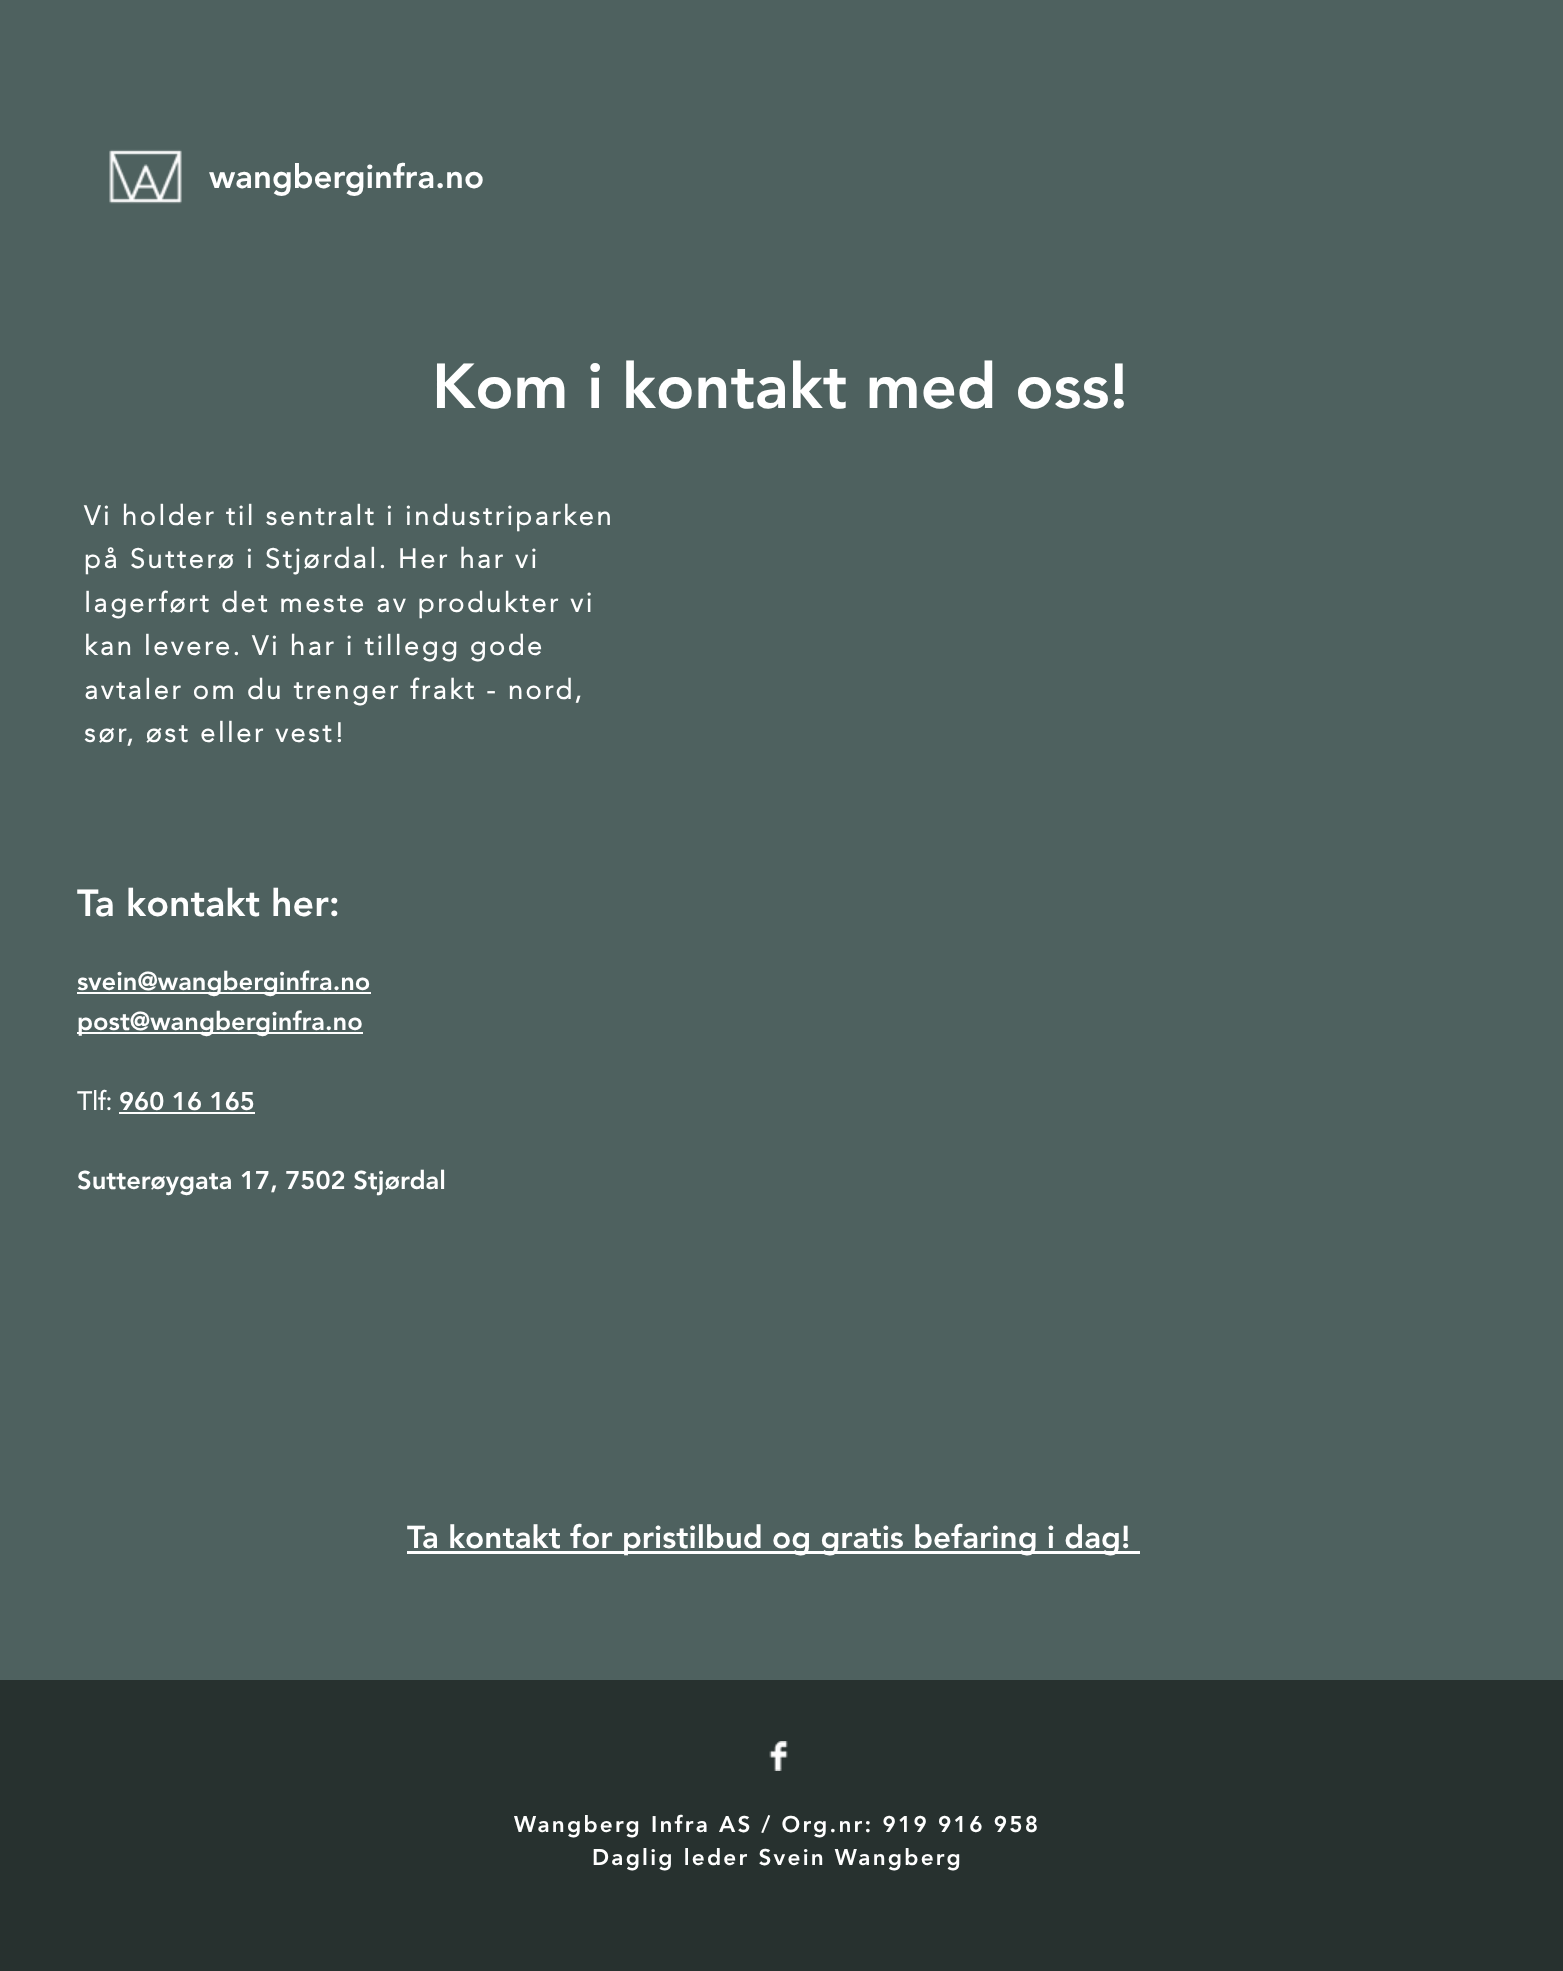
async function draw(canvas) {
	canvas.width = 1563;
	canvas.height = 1971;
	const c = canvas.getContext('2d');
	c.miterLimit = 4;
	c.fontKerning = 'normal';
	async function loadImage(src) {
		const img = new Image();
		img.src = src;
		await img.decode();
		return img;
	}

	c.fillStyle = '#4e615f';
	c.fillRect(0, 0, 1563, 1971);
	c.drawImage(await loadImage('img1.png'), 109, 149, 73, 55);
	c.font = '900 33px "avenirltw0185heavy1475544"';
	c.fillStyle = '#fff';
	c.fillText('wangberginfra.no', 209, 188);
	c.font = '900 63px "avenirltw0185heavy1475544"';
	c.fillText('Kom i kontakt med oss!', 432, 408);
	c.letterSpacing = '2.7px';
	c.font = 'bold 27px "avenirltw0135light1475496"';
	for (const [text, x, y] of [
		['Vi holder til sentralt i industriparken', 84, 525],
		['på Sutterø i Stjørdal. Her har vi', 84, 568],
		['lagerført det meste av produkter vi', 84, 612],
		['kan levere. Vi har i tillegg gode', 84, 655],
		['avtaler om du trenger frakt - nord,', 84, 699],
		['sør, øst eller vest!', 84, 742],
	]) {
		c.fillText(text, x, y);
	}
	c.letterSpacing = '0px';
	c.font = '900 37.5px "avenirltw0185heavy1475544"';
	c.fillText('Ta kontakt her:', 77, 916);
	c.fillRect(77, 992, 294, 2);
	c.font = '900 25.5px "avenirltw0185heavy1475544"';
	c.fillText('svein@wangberginfra.no', 77, 990);
	c.fillRect(77, 1032, 286, 2);
	c.fillText('post@wangberginfra.no', 77, 1030);
	c.font = 'bold 25.5px "avenirltw0135light1475496"';
	c.fillText('Tlf:', 77, 1110);
	c.font = '900 25.5px "avenirltw0185heavy1475544"';
	c.fillText('960 16 165', 119, 1110);
	c.fillRect(119, 1112, 136, 2);
	c.fillText('Sutterøygata 17, 7502 Stjørdal', 77, 1189);
	c.fillRect(407, 1551, 733, 3);
	c.font = '900 31.5px "avenirltw0185heavy1475544"';
	c.fillText('Ta kontakt for pristilbud og gratis befaring i dag!', 407, 1548);
	c.fillStyle = '#27312f';
	c.fillRect(0, 1680, 1563, 291);
	c.drawImage(await loadImage('img2.png'), 769, 1741, 19, 30);
	c.letterSpacing = '2.25px';
	c.font = '900 22.5px "avenirltw0185heavy1475544"';
	c.fillStyle = '#fff';
	c.fillText('Wangberg Infra AS / Org.nr: 919 916 958', 514, 1832);
	c.fillText('Daglig leder Svein Wangberg', 592, 1865);
}

draw(document.querySelector('canvas'));
